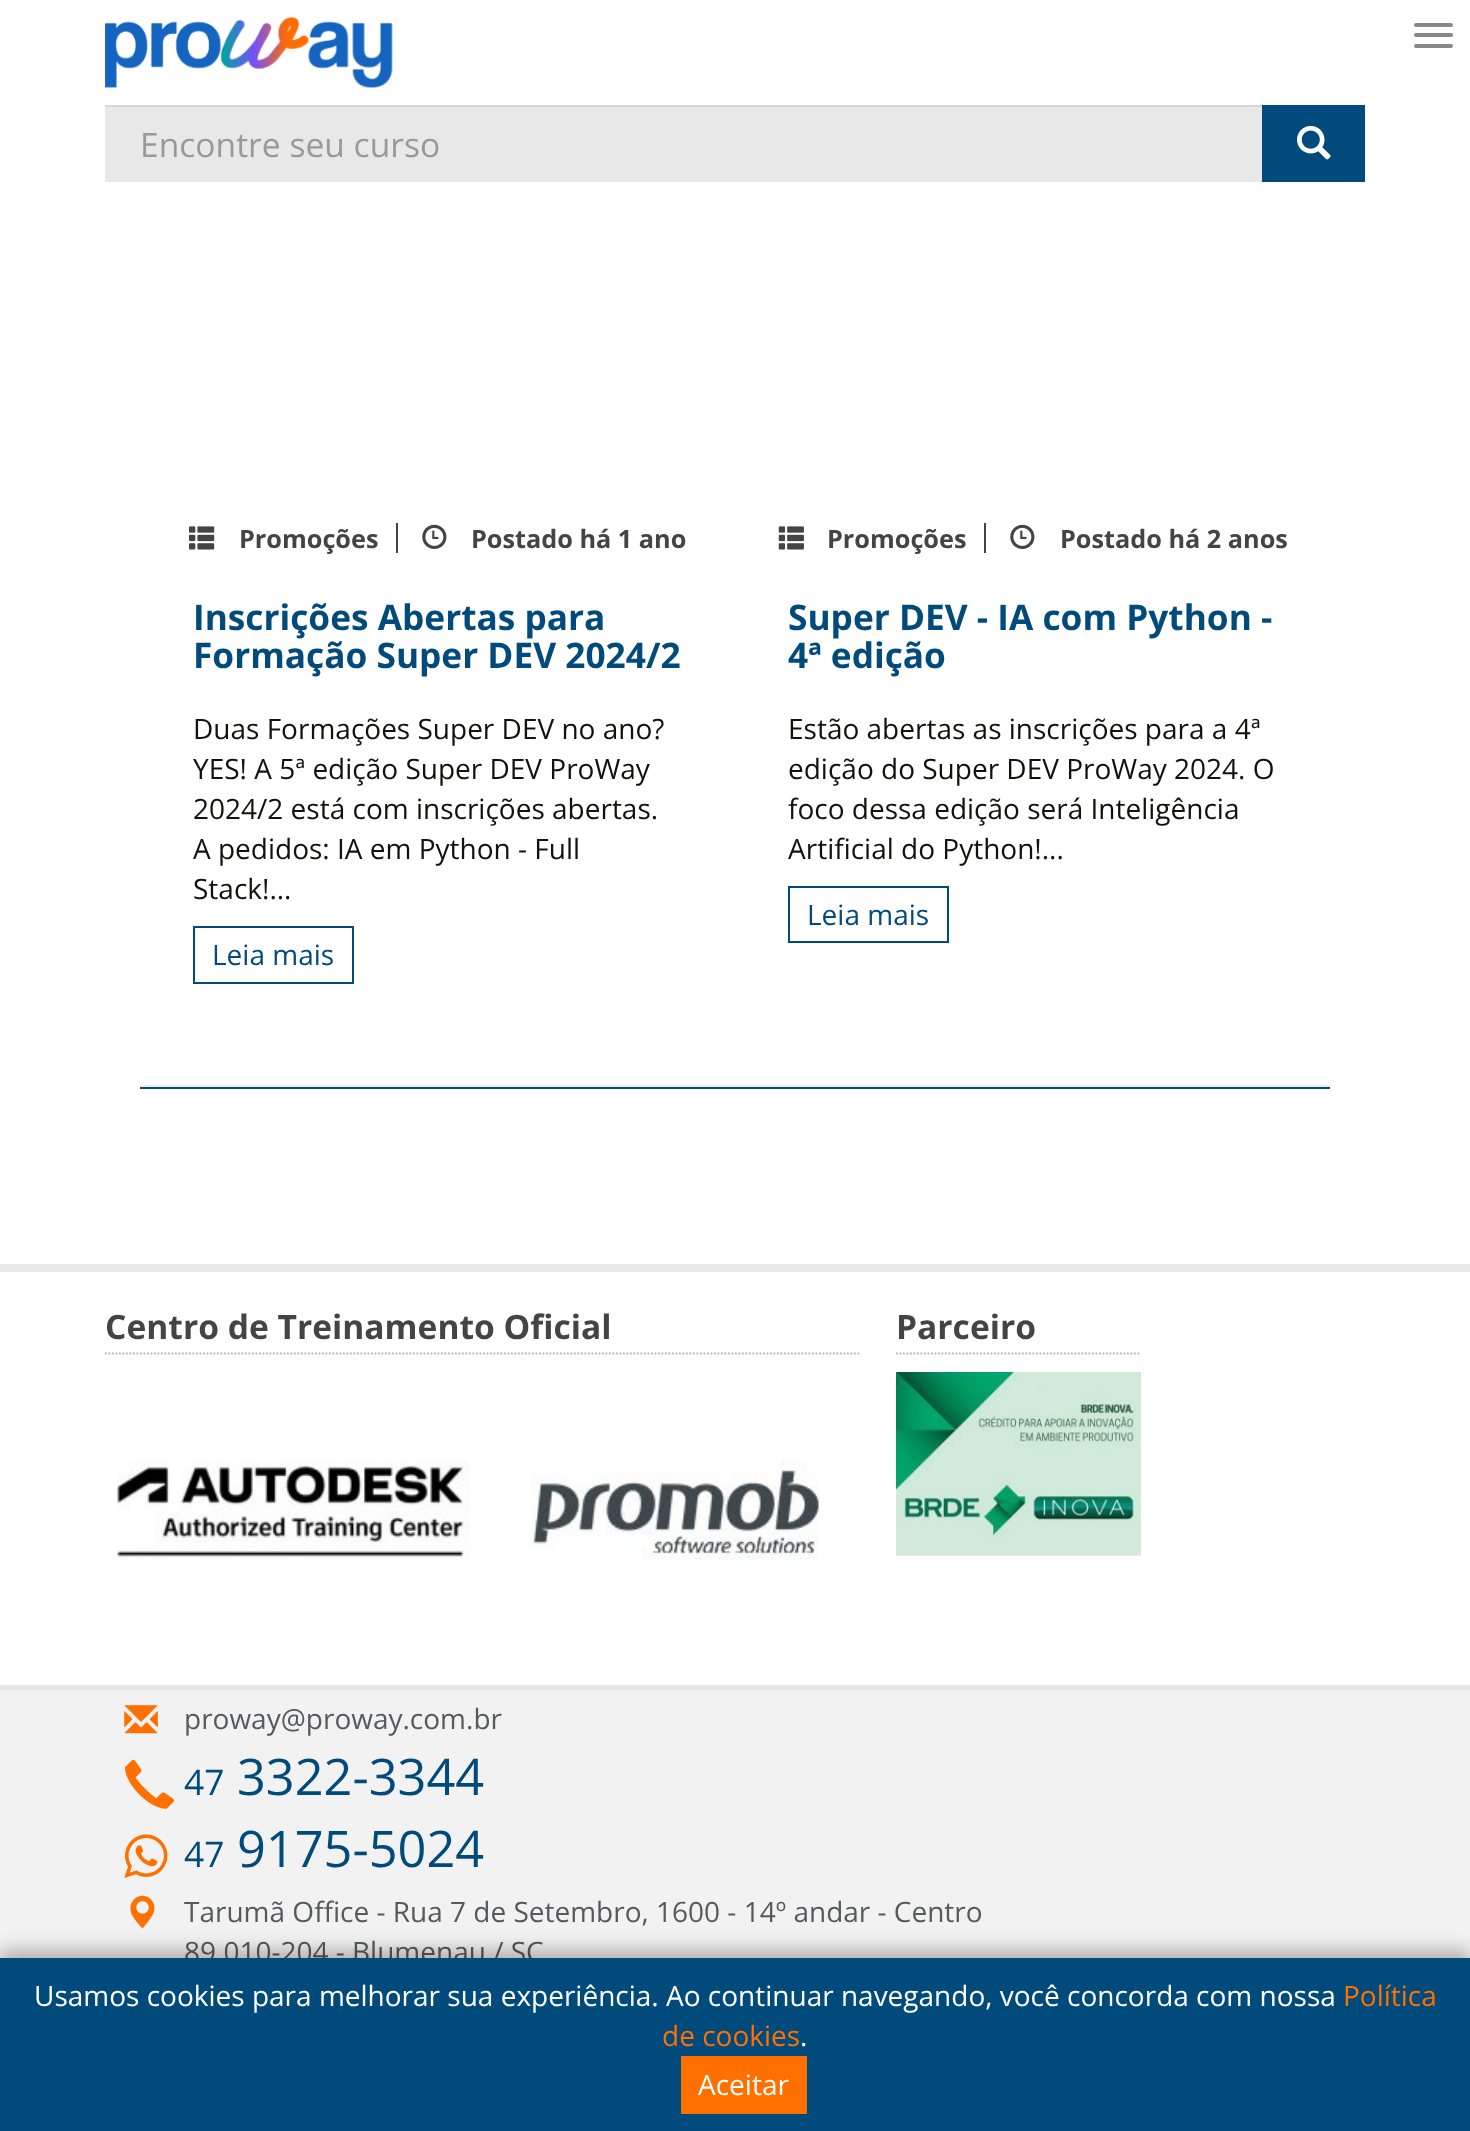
async function draw(canvas) {
	canvas.width = 1470;
	canvas.height = 2131;
	const c = canvas.getContext('2d');
	c.miterLimit = 4;
	c.fontKerning = 'normal';
	async function loadImage(src) {
		const img = new Image();
		img.src = src;
		await img.decode();
		return img;
	}

	c.fillStyle = '#fff';
	c.fillRect(0, 0, 1470, 2131);
	c.drawImage(await loadImage('img1.png'), 105, 17, 288, 71);
	c.fillStyle = '#888';
	c.beginPath();
	c.roundRect(1414, 23, 39, 4, 2);
	c.fill();
	c.beginPath();
	c.roundRect(1414, 33, 39, 4, 2);
	c.fill();
	c.beginPath();
	c.roundRect(1414, 44, 39, 4, 2);
	c.fill();
	c.fillStyle = '#e8e8e8';
	c.fillRect(105, 107, 1157, 75);
	c.fillStyle = '#d7d7d7';
	c.fillRect(105, 105, 1157, 2);
	c.font = '33.6px Open Sans';
	c.fillStyle = '#999';
	c.fillText('Encontre seu curso', 140, 157);
	c.fillStyle = '#004a7c';
	c.fillRect(1262, 105, 103, 77);
	c.drawImage(await loadImage('img2.png'), 1297, 125, 34, 35);
	c.fillStyle = '#444';
	c.fillRect(396, 523, 2, 30);
	c.drawImage(await loadImage('img3.png'), 189, 526, 26, 24);
	c.font = 'bold 25.25px Open Sans';
	c.fillText('Promoções', 239, 548);
	c.drawImage(await loadImage('img4.png'), 422, 524, 25, 25);
	c.fillText('Postado há 1 ano', 471, 548);
	c.font = 'bold 35.25px Open Sans';
	c.fillStyle = '#004a7c';
	c.fillText('Inscrições Abertas para', 193, 630);
	c.fillText('Formação Super DEV 2024/2', 193, 668);
	c.font = '28px Open Sans';
	c.fillStyle = '#12110f';
	for (const [text, x, y] of [
		['Duas Formações Super DEV no ano?', 193, 739],
		['YES! A 5ª edição Super DEV ProWay', 193, 779],
		['2024/2 está com inscrições abertas.', 193, 819],
		['A pedidos: IA em Python - Full', 193, 859],
		['Stack!...', 193, 899],
	]) {
		c.fillText(text, x, y);
	}
	c.strokeStyle = '#004a7c';
	c.lineWidth = 2;
	c.strokeRect(194, 927, 159, 56);
	c.fillStyle = '#004a7c';
	c.fillText('Leia mais', 212, 965);
	c.fillStyle = '#444';
	c.fillRect(984, 523, 2, 30);
	c.drawImage(await loadImage('img5.png'), 778, 526, 26, 24);
	c.font = 'bold 25.25px Open Sans';
	c.fillText('Promoções', 827, 548);
	c.drawImage(await loadImage('img4.png'), 1010, 524, 25, 25);
	c.fillText('Postado há 2 anos', 1060, 548);
	c.font = 'bold 35.25px Open Sans';
	c.fillStyle = '#004a7c';
	c.fillText('Super DEV - IA com Python -', 788, 630);
	c.fillText('4ª edição', 788, 668);
	c.font = '28px Open Sans';
	c.fillStyle = '#12110f';
	for (const [text, x, y] of [
		['Estão abertas as inscrições para a 4ª', 788, 739],
		['edição do Super DEV ProWay 2024. O', 788, 779],
		['foco dessa edição será Inteligência', 788, 819],
		['Artificial do Python!...', 788, 859],
	]) {
		c.fillText(text, x, y);
	}
	c.strokeRect(789, 887, 159, 55);
	c.fillStyle = '#004a7c';
	c.fillText('Leia mais', 807, 925);
	for (const [x, y, w, h, color] of [
		[140, 1085, 1190, 2, '#eee'],
		[140, 1087, 1190, 2, '#004a7c'],
		[0, 1264, 1470, 8, '#e8e8e8'],
	]) {
		c.fillStyle = color;
		c.fillRect(x, y, w, h);
	}
	c.beginPath();
	c.moveTo(105, 1353.5);
	c.lineTo(861, 1353.5);
	c.strokeStyle = '#b4b4b4';
	c.lineWidth = 1.8;
	c.setLineDash([1.75, 1.75]);
	c.stroke();
	c.font = 'bold 33.6px Open Sans';
	c.fillStyle = '#444';
	c.fillText('Centro de Treinamento Oficial', 105, 1339);
	c.drawImage(await loadImage('img6.png'), 117, 1460, 353, 100);
	c.drawImage(await loadImage('img7.png'), 531, 1460, 288, 101);
	c.beginPath();
	c.moveTo(896, 1353.5);
	c.lineTo(1141, 1353.5);
	c.stroke();
	c.fillText('Parceiro', 896, 1339);
	c.drawImage(await loadImage('img8.png'), 896, 1372, 245, 184);
	c.fillStyle = '#f2f2f2';
	c.fillRect(0, 1690, 1470, 268);
	c.fillStyle = '#e8e8e8';
	c.fillRect(0, 1685, 1470, 5);
	c.drawImage(await loadImage('img9.png'), 124, 1705, 34, 29);
	c.font = '28px Open Sans';
	c.fillStyle = '#58595b';
	c.fillText('proway@proway.com.br', 184, 1729);
	c.drawImage(await loadImage('img10.png'), 125, 1759, 49, 50);
	c.font = '35.25px Open Sans';
	c.fillStyle = '#004a7c';
	c.fillText('47', 184, 1795);
	c.font = '50.5px Open Sans';
	c.fillText('3322-3344', 237, 1795);
	c.drawImage(await loadImage('img11.png'), 124, 1834, 44, 44);
	c.font = '35.25px Open Sans';
	c.fillText('47', 184, 1867);
	c.font = '50.5px Open Sans';
	c.fillText('9175-5024', 237, 1867);
	c.drawImage(await loadImage('img12.png'), 130, 1895, 25, 34);
	c.font = '28px Open Sans';
	c.fillStyle = '#58595b';
	c.fillText('Tarumã Office - Rua 7 de Setembro, 1600 - 14º andar - Centro', 184, 1922);
	c.fillText('89.010-204 - Blumenau / SC', 184, 1962);
	c.fillStyle = '#12110f4d';
	c.filter = 'blur(9px)';
	c.beginPath();
	c.rect(0, 1950, 1470, 173);
	c.fill();
	c.filter = 'none';
	c.fillStyle = '#004a7c';
	c.fillRect(0, 1958, 1470, 173);
	c.fillStyle = '#fff';
	c.fillText('Usamos cookies para melhorar sua experiência. Ao continuar navegando, você concorda com nossa', 34, 2006);
	c.fillStyle = '#ff7000';
	c.fillText('Política', 1343, 2006);
	c.fillText('de cookies', 662, 2046);
	c.fillStyle = '#fff';
	c.fillText('.', 800, 2046);
	c.fillStyle = '#ff7000';
	c.fillRect(681, 2056, 126, 58);
	c.fillStyle = '#fff';
	c.fillText('Aceitar', 698, 2095);
}

draw(document.querySelector('canvas'));
